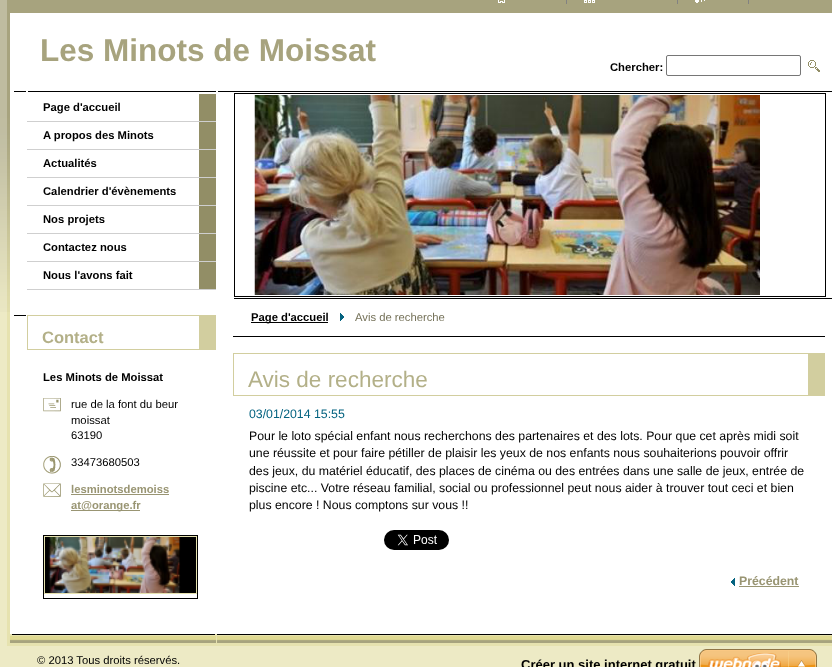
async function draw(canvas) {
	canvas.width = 832;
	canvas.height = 667;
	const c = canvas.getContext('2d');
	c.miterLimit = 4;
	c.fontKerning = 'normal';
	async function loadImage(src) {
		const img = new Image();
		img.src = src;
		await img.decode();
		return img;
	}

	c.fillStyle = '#edeac5';
	c.fillRect(0, 0, 832, 667);
	c.drawImage(await loadImage('img1.png'), 7, 312, 3, 322);
	c.drawImage(await loadImage('img2.png'), 0, 0, 10, 312);
	c.fillStyle = '#fff';
	c.fillRect(10, 13, 822, 621);
	c.fillStyle = '#a7a37e';
	c.fillRect(10, 0, 822, 13);
	c.drawImage(await loadImage('img3.png'), 498, 0, 7, 3);
	c.fillStyle = '#828282';
	c.fillRect(566, 0, 1, 4);
	c.drawImage(await loadImage('img4.png'), 584, 0, 11, 3);
	c.fillRect(677, 0, 1, 4);
	c.drawImage(await loadImage('img5.png'), 695, 0, 10, 3);
	c.fillRect(748, 0, 1, 4);
	c.font = 'bold 31.5px Liberation Sans';
	c.fillStyle = '#a7a37e';
	c.fillText('Les Minots de Moissat', 40, 61);
	c.font = 'bold 11.25px Liberation Sans';
	c.fillStyle = '#000';
	c.fillText('Chercher:', 610, 71);
	c.beginPath();
	c.roundRect(666.5, 55.5, 134, 20, 1.5);
	c.strokeStyle = '#767676';
	c.stroke();
	c.drawImage(await loadImage('img6.png'), 808, 60, 12, 12);
	c.drawImage(await loadImage('img7.png'), 14, 91, 202, 1);
	c.fillStyle = '#928e66';
	c.fillRect(199, 94, 17, 195);
	c.fillStyle = '#cfcfcf';
	c.fillRect(27, 121, 189, 1);
	c.fillStyle = '#000';
	c.fillText('Page d\'accueil', 43, 111);
	c.fillStyle = '#cfcfcf';
	c.fillRect(27, 149, 189, 1);
	c.fillStyle = '#000';
	c.fillText('A propos des Minots', 43, 139);
	c.fillStyle = '#cfcfcf';
	c.fillRect(27, 177, 189, 1);
	c.fillStyle = '#000';
	c.fillText('Actualités', 43, 167);
	c.fillStyle = '#cfcfcf';
	c.fillRect(27, 205, 189, 1);
	c.fillStyle = '#000';
	c.fillText('Calendrier d\'évènements', 43, 195);
	c.fillStyle = '#cfcfcf';
	c.fillRect(27, 233, 189, 1);
	c.fillStyle = '#000';
	c.fillText('Nos projets', 43, 223);
	c.fillStyle = '#cfcfcf';
	c.fillRect(27, 261, 189, 1);
	c.fillStyle = '#000';
	c.fillText('Contactez nous', 43, 251);
	c.fillStyle = '#cfcfcf';
	c.fillRect(27, 289, 189, 1);
	c.fillStyle = '#000';
	c.fillText('Nous l\'avons fait', 43, 279);
	for (const [x, y, w, h, color] of [
		[14, 315, 12, 1, '#000'],
		[27, 315, 172, 1, '#d2ce9f'],
		[199, 315, 17, 34, '#d2ce9f'],
		[27, 349, 189, 1, '#d2ce9f'],
		[27, 315, 1, 35, '#d2ce9f'],
	]) {
		c.fillStyle = color;
		c.fillRect(x, y, w, h);
	}
	c.font = 'bold 16.5px Liberation Sans';
	c.fillStyle = '#b3b088';
	c.fillText('Contact', 42, 343);
	c.font = 'bold 11.25px Liberation Sans';
	c.fillStyle = '#000';
	c.fillText('Les Minots de Moissat', 43, 381);
	c.drawImage(await loadImage('img8.png'), 43, 398, 18, 14);
	c.font = '11.25px Liberation Sans';
	for (const [text, x, y] of [
		['rue de la font du beur', 71, 408],
		['moissat', 71, 424],
		['63190', 71, 439],
	]) {
		c.fillText(text, x, y);
	}
	c.drawImage(await loadImage('img9.png'), 43, 456, 18, 18);
	c.fillText('33473680503', 71, 466);
	c.drawImage(await loadImage('img10.png'), 43, 483, 18, 14);
	c.font = 'bold 11.25px Liberation Sans';
	c.fillStyle = '#999573';
	c.fillText('lesminotsdemoiss', 71, 493);
	c.fillRect(71, 494, 98, 1);
	c.fillRect(71, 510, 69, 1);
	c.fillText('at@orange.fr', 71, 509);
	c.strokeStyle = '#000';
	c.strokeRect(43.5, 535.5, 154, 63);
	c.strokeStyle = '#e6e2af';
	c.strokeRect(44.5, 536.5, 152, 57);
	c.drawImage(await loadImage('img11.png'), 45, 537, 151, 56);
	c.fillStyle = '#000';
	c.fillRect(218, 91, 614, 1);
	c.fillRect(234, 298, 598, 1);
	c.strokeStyle = '#000';
	c.strokeRect(234.5, 93.5, 591, 203);
	c.drawImage(await loadImage('img12.png'), 254, 95, 506, 200);
	c.fillRect(233, 336, 592, 1);
	c.fillRect(251, 322, 77, 1);
	c.fillText('Page d\'accueil', 251, 321);
	c.drawImage(await loadImage('img13.png'), 340, 313, 4, 8);
	c.font = '11.25px Liberation Sans';
	c.fillStyle = '#747158';
	c.fillText('Avis de recherche', 355, 321);
	for (const [x, y, w, h, color] of [
		[233, 353, 575, 1, '#d2ce9f'],
		[808, 353, 17, 42, '#d2ce9f'],
		[233, 395, 592, 1, '#d2ce9f'],
		[233, 353, 1, 43, '#d2ce9f'],
	]) {
		c.fillStyle = color;
		c.fillRect(x, y, w, h);
	}
	c.font = '22.5px Liberation Sans';
	c.fillStyle = '#b3b088';
	c.fillText('Avis de recherche', 248, 387);
	c.font = '12.3px Liberation Sans';
	c.fillStyle = '#046380';
	c.fillText('03/01/2014 15:55', 249, 418);
	c.fillStyle = '#000';
	for (const [text, x, y] of [
		['Pour le loto spécial enfant nous recherchons des partenaires et des lots. Pour que cet après midi soit', 249, 440],
		['une réussite et pour faire pétiller de plaisir les yeux de nos enfants nous souhaiterions pouvoir offrir', 249, 457],
		['des jeux, du matériel éducatif, des places de cinéma ou des entrées dans une salle de jeux, entrée de', 249, 475],
		['piscine etc... Votre réseau familial, social ou professionnel peut nous aider à trouver tout ceci et bien', 249, 492],
		['plus encore ! Nous comptons sur vous !!', 249, 509],
	]) {
		c.fillText(text, x, y);
	}
	c.drawImage(await loadImage('img14.png'), 384, 530, 65, 20);
	c.drawImage(await loadImage('img15.png'), 731, 578, 4, 8);
	c.font = 'bold 12.3px Liberation Sans';
	c.fillStyle = '#999573';
	c.fillText('Précédent', 739, 585);
	c.fillRect(739, 586, 60, 1);
	c.drawImage(await loadImage('img16.png'), 7, 634, 825, 12);
	c.font = '11.25px Liberation Sans';
	c.fillStyle = '#000';
	c.fillText('© 2013 Tous droits réservés.', 37, 664);
	c.font = 'bold 13px Liberation Sans';
	c.fillText('Créer un site internet gratuit', 521, 669);
	c.drawImage(await loadImage('img17.png'), 699, 649, 118, 18);
}

draw(document.querySelector('canvas'));
